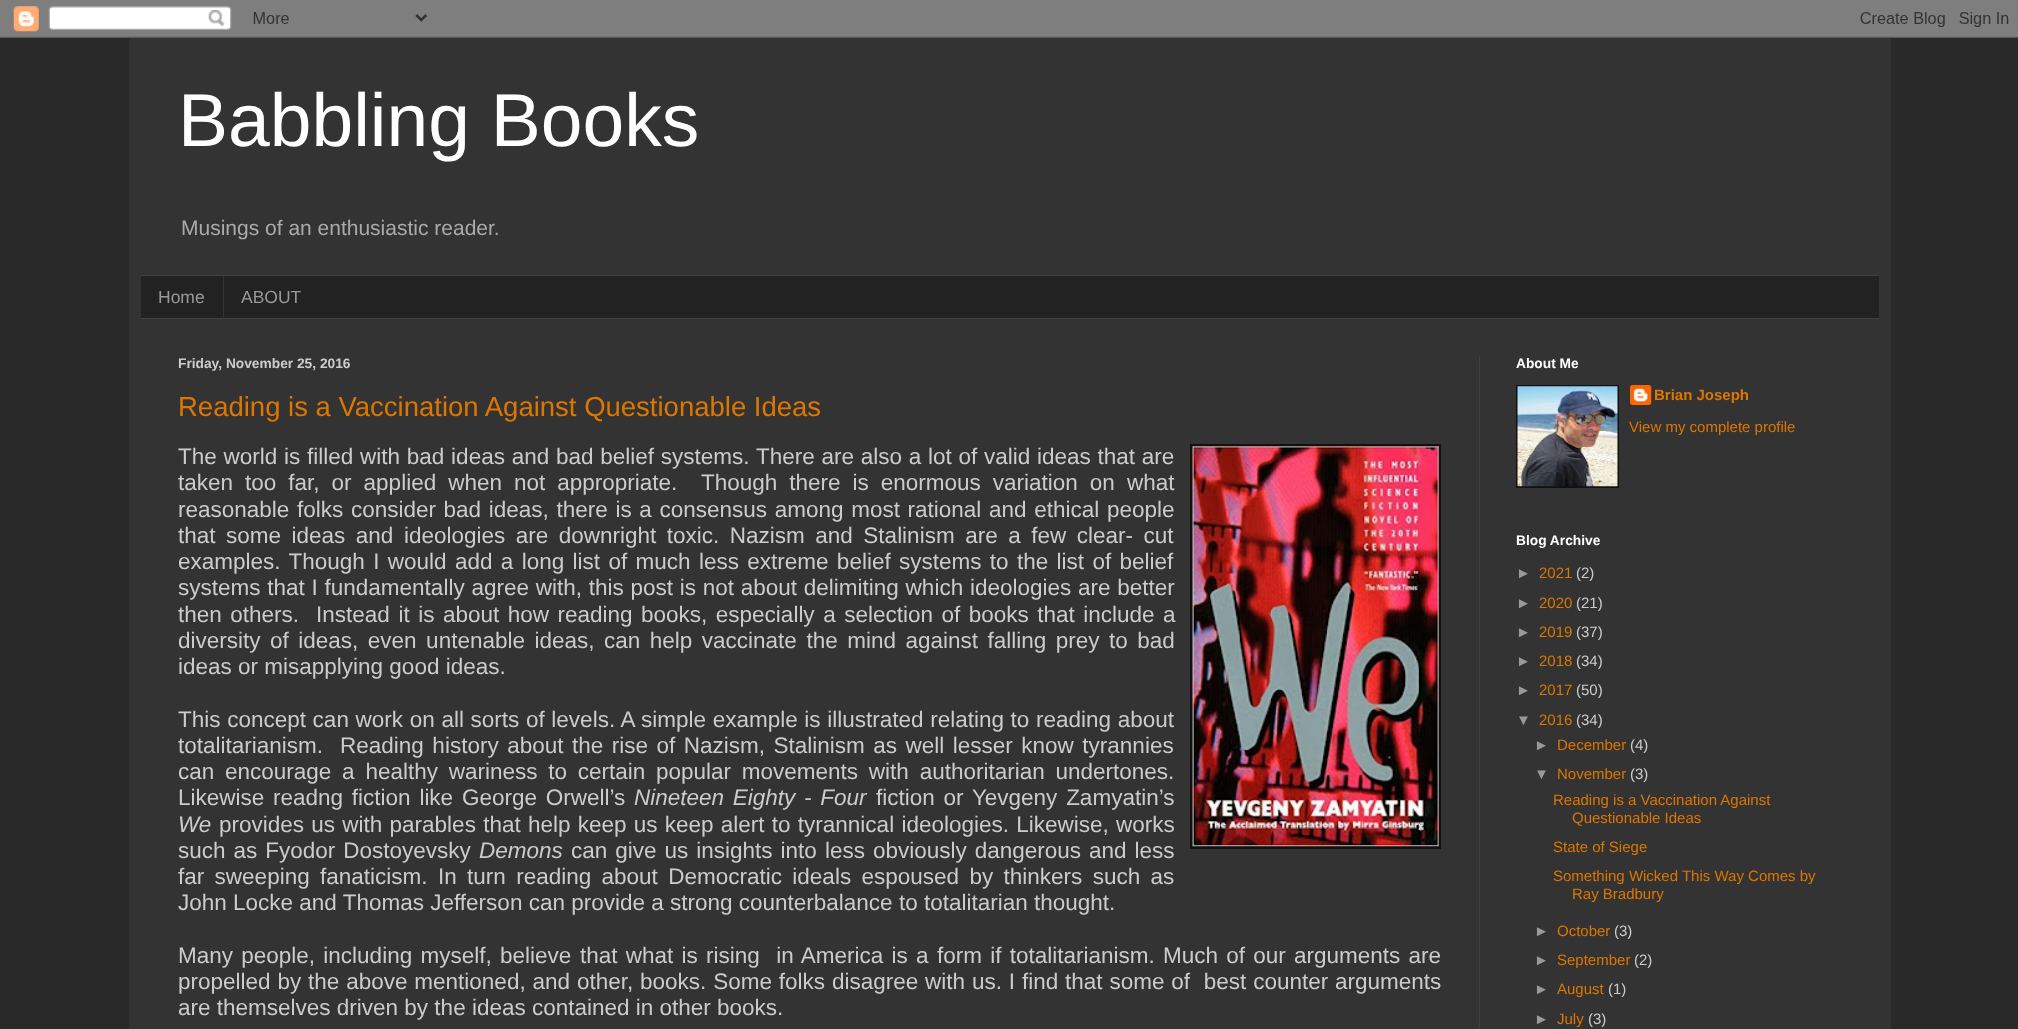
async function draw(canvas) {
	canvas.width = 2018;
	canvas.height = 1029;
	const c = canvas.getContext('2d');
	c.miterLimit = 4;
	c.fontKerning = 'normal';
	async function loadImage(src) {
		const img = new Image();
		img.src = src;
		await img.decode();
		return img;
	}

	c.fillStyle = '#292929';
	c.fillRect(0, 0, 2018, 1029);
	c.drawImage(await loadImage('img1.png'), 0, 0, 2018, 38);
	c.fillStyle = '#333';
	c.fillRect(129, 38, 1762, 991);
	c.font = '75px Liberation Sans';
	c.fillStyle = '#fff';
	c.fillText('Babbling Books', 178, 146);
	c.font = '21px Liberation Sans';
	c.fillStyle = '#aaa';
	c.fillText('Musings of an enthusiastic reader.', 181, 235);
	for (const [x, y, w, h, color] of [
		[141, 276, 1738, 42, '#222'],
		[141, 275, 1738, 1, '#404040'],
		[141, 318, 1738, 1, '#404040'],
	]) {
		c.fillStyle = color;
		c.fillRect(x, y, w, h);
	}
	c.font = '17.5px Liberation Sans';
	c.fillStyle = '#999';
	c.fillText('Home', 158, 303);
	c.fillStyle = '#333';
	c.fillRect(223, 276, 1, 42);
	c.fillStyle = '#999';
	c.fillText('ABOUT', 241, 303);
	c.fillStyle = '#404040';
	c.fillRect(1479, 356, 1, 673);
	c.font = 'bold 13.75px Liberation Sans';
	c.fillStyle = '#ccc';
	c.fillText('Friday, November 25, 2016', 178, 368);
	c.font = '27.5px Liberation Sans';
	c.fillStyle = '#d70';
	c.fillText('Reading is a Vaccination Against Questionable Ideas', 178, 416);
	c.wordSpacing = '0.5px';
	c.font = '22.5px Liberation Sans';
	c.fillStyle = '#ccc';
	c.fillText('The world is filled with bad ideas and bad belief systems. There are also a lot of valid ideas that are', 178, 464);
	c.wordSpacing = '5.75px';
	c.fillText('taken too far, or applied when not appropriate.  Though there is enormous variation on what', 178, 490);
	c.wordSpacing = '1.4px';
	c.fillText('reasonable folks consider bad ideas, there is a consensus among most rational and ethical people', 178, 517);
	c.wordSpacing = '4.25px';
	c.fillText('that some ideas and ideologies are downright toxic. Nazism and Stalinism are a few clear- cut', 178, 543);
	c.wordSpacing = '2.1px';
	c.fillText('examples. Though I would add a long list of much less extreme belief systems to the list of belief', 178, 569);
	c.wordSpacing = '0.5px';
	c.fillText('systems that I fundamentally agree with, this post is not about delimiting which ideologies are better', 178, 595);
	c.wordSpacing = '2.25px';
	c.fillText('then others.  Instead it is about how reading books, especially a selection of books that include a', 178, 622);
	c.wordSpacing = '3.25px';
	c.fillText('diversity of ideas, even untenable ideas, can help vaccinate the mind against falling prey to bad', 178, 648);
	c.wordSpacing = '0px';
	c.fillText('ideas or misapplying good ideas.', 178, 674);
	c.fillStyle = '#111';
	c.fillRect(1190, 444, 251, 405);
	c.drawImage(await loadImage('img2.png'), 1192, 446, 247, 401);
	c.wordSpacing = '0.4px';
	c.fillStyle = '#ccc';
	c.fillText('This concept can work on all sorts of levels. A simple example is illustrated relating to reading about', 178, 727);
	c.wordSpacing = '2.25px';
	c.fillText('totalitarianism.  Reading history about the rise of Nazism, Stalinism as well lesser know tyrannies', 178, 753);
	c.wordSpacing = '4.5px';
	c.fillText('can encourage a healthy wariness to certain popular movements with authoritarian undertones.', 178, 779);
	c.wordSpacing = '2.5px';
	c.fillText('Likewise readng fiction like George Orwell’s', 178, 805);
	c.font = 'italic 22.5px Liberation Sans';
	c.fillText('Nineteen Eighty - Four', 634, 805);
	c.font = '22.5px Liberation Sans';
	c.fillText('fiction or Yevgeny Zamyatin’s', 876, 805);
	c.wordSpacing = '0px';
	c.font = 'italic 22.5px Liberation Sans';
	c.fillText('We', 178, 832);
	c.wordSpacing = '1px';
	c.font = '22.5px Liberation Sans';
	c.fillText('provides us with parables that help keep us keep alert to tyrannical ideologies. Likewise, works', 219, 832);
	c.wordSpacing = '1.75px';
	c.fillText('such as Fyodor Dostoyevsky', 178, 858);
	c.wordSpacing = '0px';
	c.font = 'italic 22.5px Liberation Sans';
	c.fillText('Demons', 479, 858);
	c.wordSpacing = '1.75px';
	c.font = '22.5px Liberation Sans';
	c.fillText('can give us insights into less obviously dangerous and less', 571, 858);
	c.wordSpacing = '4.1px';
	c.fillText('far sweeping fanaticism. In turn reading about Democratic ideals espoused by thinkers such as', 178, 884);
	c.wordSpacing = '0px';
	c.fillText('John Locke and Thomas Jefferson can provide a strong counterbalance to totalitarian thought.', 178, 910);
	c.wordSpacing = '2px';
	c.fillText('Many people, including myself,', 178, 963);
	c.wordSpacing = '0px';
	c.fillText('believe', 500, 963);
	c.wordSpacing = '2px';
	c.fillText('that what is rising  in America is a form if totalitarianism. Much of our arguments are', 580, 963);
	c.wordSpacing = '0.6px';
	c.fillText('propelled by the above mentioned, and other, books. Some folks disagree with us. I find that some of  best counter arguments', 178, 989);
	c.wordSpacing = '0px';
	c.fillText('are themselves driven by the ideas contained in other books.', 178, 1015);
	c.font = 'bold 13.75px Liberation Sans';
	c.fillStyle = '#fff';
	c.fillText('About Me', 1516, 368);
	c.fillStyle = '#111';
	c.fillRect(1516, 385, 103, 103);
	c.drawImage(await loadImage('img3.png'), 1517, 386, 101, 101);
	c.drawImage(await loadImage('img4.png'), 1630, 385, 22, 20);
	c.font = 'bold 15px Liberation Sans';
	c.fillStyle = '#d70';
	c.fillText('Brian Joseph', 1654, 400);
	c.font = '15px Liberation Sans';
	c.fillText('View my complete profile', 1629, 432);
	c.font = 'bold 13.75px Liberation Sans';
	c.fillStyle = '#fff';
	c.fillText('Blog Archive', 1516, 545);
	c.font = '15px Liberation Sans';
	c.fillStyle = '#999';
	c.fillText('►', 1516, 578);
	c.fillStyle = '#d70';
	c.fillText('2021', 1539, 578);
	c.fillStyle = '#ccc';
	c.fillText('(2)', 1576, 578);
	c.fillStyle = '#999';
	c.fillText('►', 1516, 608);
	c.fillStyle = '#d70';
	c.fillText('2020', 1539, 608);
	c.fillStyle = '#ccc';
	c.fillText('(21)', 1576, 608);
	c.fillStyle = '#999';
	c.fillText('►', 1516, 637);
	c.fillStyle = '#d70';
	c.fillText('2019', 1539, 637);
	c.fillStyle = '#ccc';
	c.fillText('(37)', 1576, 637);
	c.fillStyle = '#999';
	c.fillText('►', 1516, 666);
	c.fillStyle = '#d70';
	c.fillText('2018', 1539, 666);
	c.fillStyle = '#ccc';
	c.fillText('(34)', 1576, 666);
	c.fillStyle = '#999';
	c.fillText('►', 1516, 695);
	c.fillStyle = '#d70';
	c.fillText('2017', 1539, 695);
	c.fillStyle = '#ccc';
	c.fillText('(50)', 1576, 695);
	c.fillStyle = '#999';
	c.fillText('▼', 1516, 725);
	c.fillStyle = '#d70';
	c.fillText('2016', 1539, 725);
	c.fillStyle = '#ccc';
	c.fillText('(34)', 1576, 725);
	c.fillStyle = '#999';
	c.fillText('►', 1534, 750);
	c.fillStyle = '#d70';
	c.fillText('December', 1557, 750);
	c.fillStyle = '#ccc';
	c.fillText('(4)', 1630, 750);
	c.fillStyle = '#999';
	c.fillText('▼', 1534, 779);
	c.fillStyle = '#d70';
	c.fillText('November', 1557, 779);
	c.fillStyle = '#ccc';
	c.fillText('(3)', 1630, 779);
	c.fillStyle = '#d70';
	for (const [text, x, y] of [
		['Reading is a Vaccination Against', 1553, 805],
		['Questionable Ideas', 1572, 823],
		['State of Siege', 1553, 852],
		['Something Wicked This Way Comes by', 1553, 881],
		['Ray Bradbury', 1572, 899],
	]) {
		c.fillText(text, x, y);
	}
	c.fillStyle = '#999';
	c.fillText('►', 1534, 936);
	c.fillStyle = '#d70';
	c.fillText('October', 1557, 936);
	c.fillStyle = '#ccc';
	c.fillText('(3)', 1614, 936);
	c.fillStyle = '#999';
	c.fillText('►', 1534, 965);
	c.fillStyle = '#d70';
	c.fillText('September', 1557, 965);
	c.fillStyle = '#ccc';
	c.fillText('(2)', 1634, 965);
	c.fillStyle = '#999';
	c.fillText('►', 1534, 994);
	c.fillStyle = '#d70';
	c.fillText('August', 1557, 994);
	c.fillStyle = '#ccc';
	c.fillText('(1)', 1608, 994);
	c.fillStyle = '#999';
	c.fillText('►', 1534, 1024);
	c.fillStyle = '#d70';
	c.fillText('July', 1557, 1024);
	c.fillStyle = '#ccc';
	c.fillText('(3)', 1588, 1024);
}

draw(document.querySelector('canvas'));
